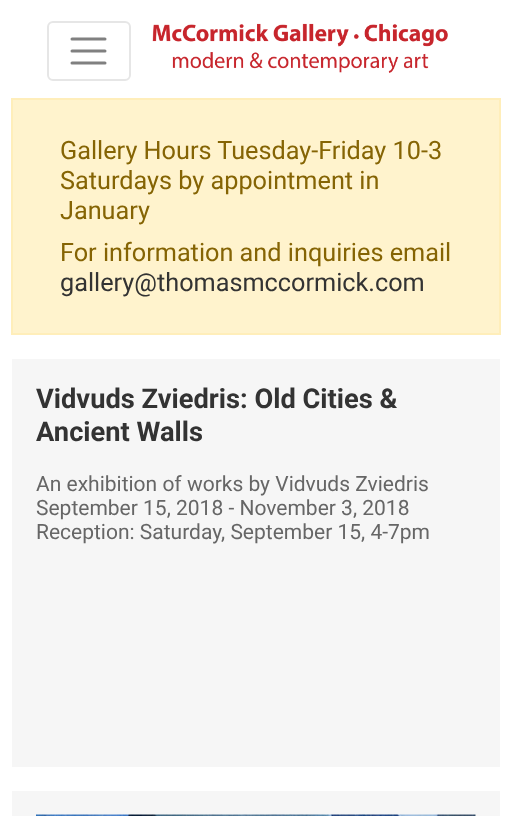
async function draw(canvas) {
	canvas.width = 511;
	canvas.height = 816;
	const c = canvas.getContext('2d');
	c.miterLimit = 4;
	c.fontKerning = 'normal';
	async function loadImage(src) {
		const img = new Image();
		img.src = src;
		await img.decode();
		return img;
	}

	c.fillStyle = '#fff';
	c.fillRect(0, 0, 511, 816);
	c.beginPath();
	c.roundRect(48, 22, 82, 58, 5);
	c.strokeStyle = '#e6e6e6';
	c.lineWidth = 2;
	c.stroke();
	c.beginPath();
	c.moveTo(72, 39);
	c.lineTo(105, 39);
	c.moveTo(72, 51);
	c.lineTo(105, 51);
	c.moveTo(72, 63);
	c.lineTo(105, 63);
	c.strokeStyle = '#808080';
	c.lineWidth = 3;
	c.lineCap = 'round';
	c.stroke();
	c.drawImage(await loadImage('img1.png'), 152, 23, 296, 50);
	c.fillStyle = '#fff3cd';
	c.beginPath();
	c.rect(12, 99, 488, 235);
	c.fill();
	c.strokeStyle = '#ffeeba';
	c.lineWidth = 2;
	c.stroke();
	c.font = '25.25px Roboto';
	c.fillStyle = '#856404';
	for (const [text, x, y] of [
		['Gallery Hours Tuesday-Friday 10-3', 60, 159],
		['Saturdays by appointment in', 60, 189],
		['January', 60, 219],
		['For information and inquiries email', 60, 261],
	]) {
		c.fillText(text, x, y);
	}
	c.fillStyle = '#333';
	c.fillText('gallery@thomasmccormick.com', 60, 291);
	c.fillStyle = '#f6f6f6';
	c.fillRect(12, 359, 488, 408);
	c.font = 'bold 27.25px Roboto';
	c.fillStyle = '#333';
	c.fillText('Vidvuds Zviedris: Old Cities &', 36, 408);
	c.fillText('Ancient Walls', 36, 441);
	c.font = '21px Roboto';
	c.fillStyle = '#666';
	for (const [text, x, y] of [
		['An exhibition of works by Vidvuds Zviedris', 36, 491],
		['September 15, 2018 - November 3, 2018', 36, 515],
		['Reception: Saturday, September 15, 4-7pm', 36, 539],
	]) {
		c.fillText(text, x, y);
	}
	c.fillStyle = '#f6f6f6';
	c.fillRect(12, 791, 488, 25);
	c.drawImage(await loadImage('img2.png'), 36, 814, 440, 2);
}

draw(document.querySelector('canvas'));
